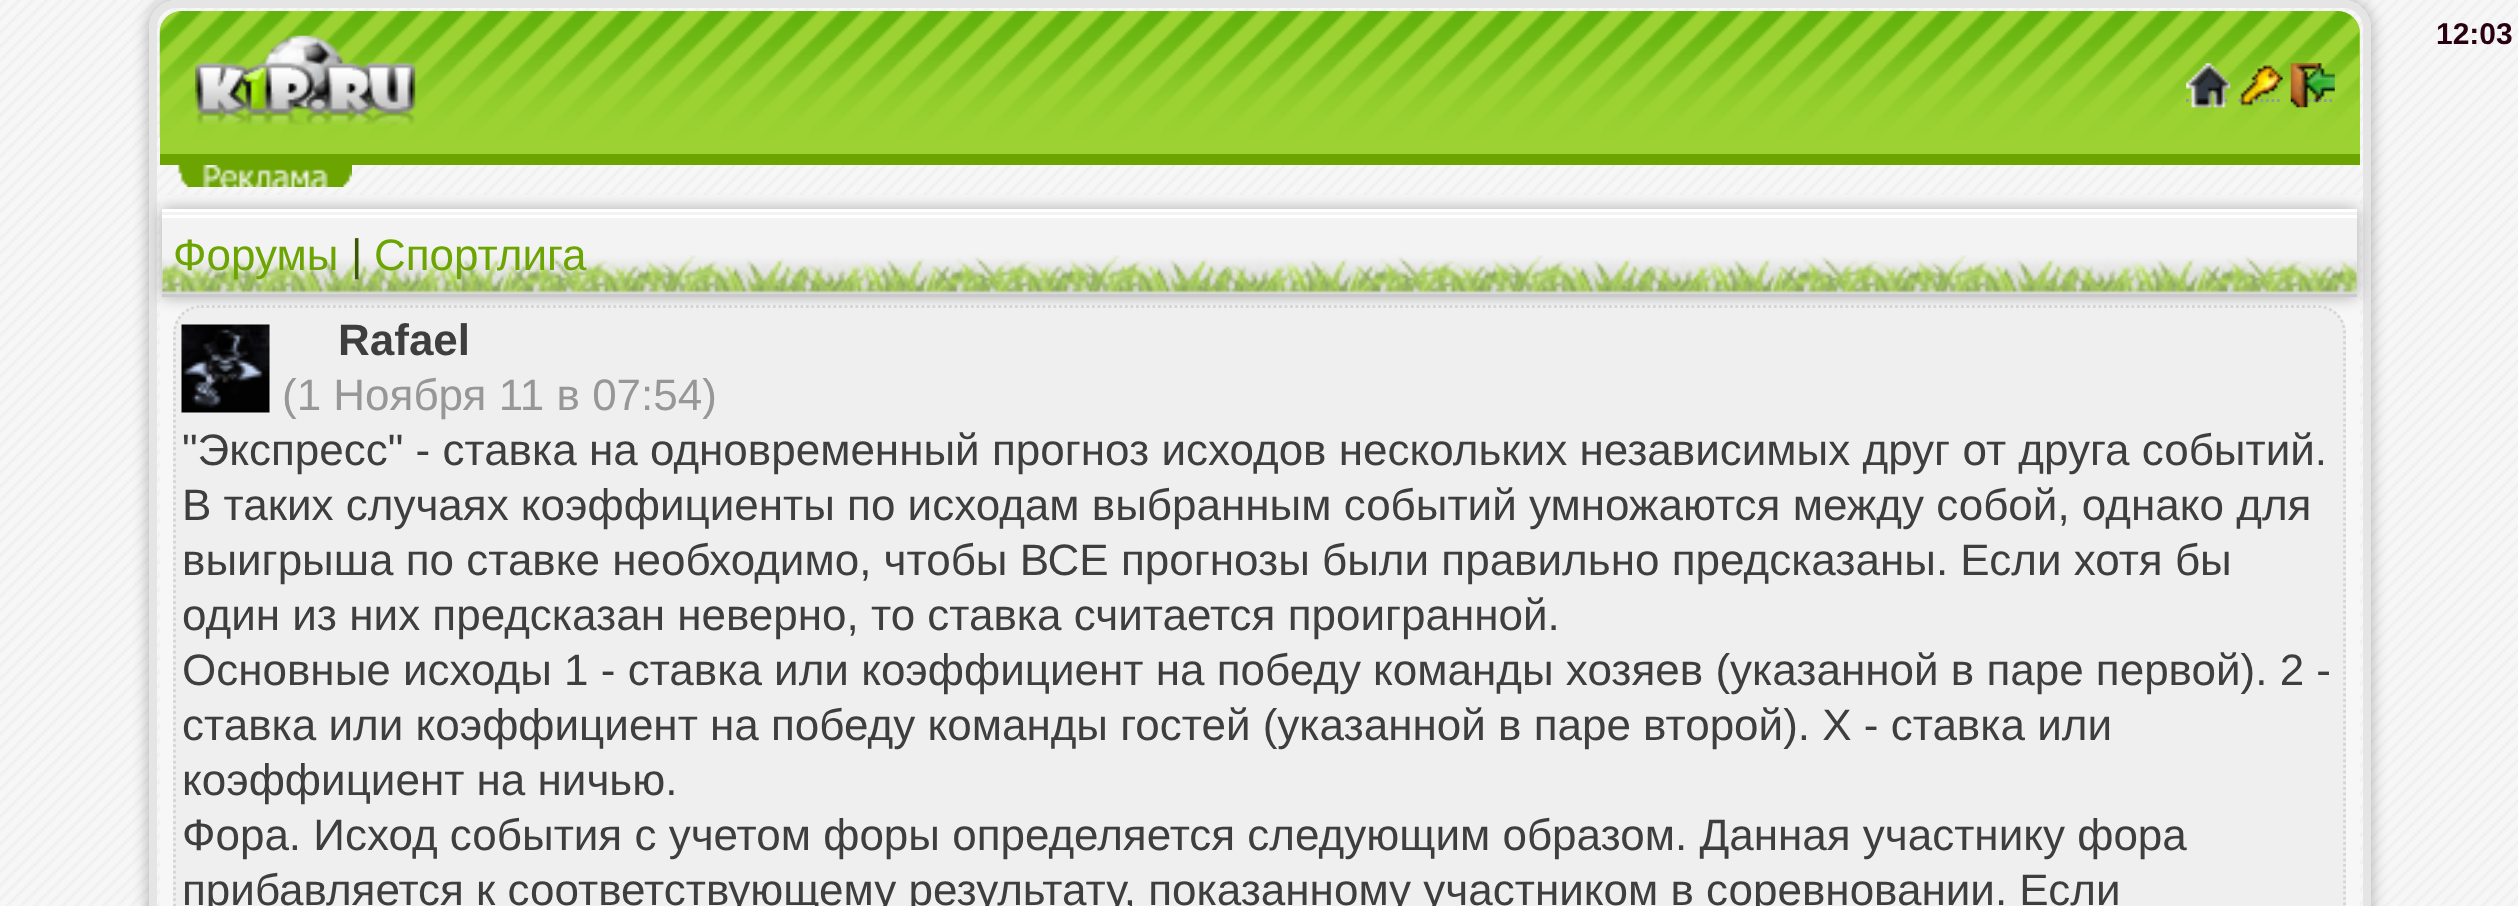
async function draw(canvas) {
	canvas.width = 2518;
	canvas.height = 906;
	const c = canvas.getContext('2d');
	c.miterLimit = 4;
	c.fontKerning = 'normal';
	async function loadImage(src) {
		const img = new Image();
		img.src = src;
		await img.decode();
		return img;
	}

	c.fillStyle = '#fff';
	c.fillRect(0, 0, 2518, 906);
	c.drawImage(await loadImage('img1.png'), 0, 0, 2518, 906);
	c.save();
	c.beginPath();
	c.moveTo(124, 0);
	c.lineTo(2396, 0);
	c.lineTo(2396, 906);
	c.lineTo(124, 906);
	c.closePath();
	c.moveTo(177, 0);
	c.lineTo(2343, 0);
	c.bezierCurveTo(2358.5, 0, 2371, 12.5, 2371, 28);
	c.lineTo(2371, 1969);
	c.bezierCurveTo(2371, 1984.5, 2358.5, 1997, 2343, 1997);
	c.lineTo(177, 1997);
	c.bezierCurveTo(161.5, 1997, 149, 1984.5, 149, 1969);
	c.lineTo(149, 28);
	c.bezierCurveTo(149, 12.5, 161.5, 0, 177, 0);
	c.closePath();
	c.clip('evenodd');
	c.fillStyle = '#0000004d';
	c.filter = 'blur(8px)';
	c.beginPath();
	c.roundRect(149, 0, 2222, 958, 28);
	c.fill();
	c.filter = 'none';
	c.restore();
	c.beginPath();
	c.roundRect(153, 4, 2214, 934, 24);
	c.strokeStyle = '#e5e5e5';
	c.lineWidth = 8;
	c.stroke();
	c.fillStyle = '#9cd333';
	c.beginPath();
	c.roundRect(160, 11, 2200, 154, [22, 22, 0, 0]);
	c.fill();
	c.drawImage(await loadImage('img2.png'), 159, 11, 2201, 127);
	c.fillStyle = '#6ca402';
	c.fillRect(160, 154, 2200, 11);
	c.drawImage(await loadImage('img3.png'), 195, 35, 221, 90);
	c.beginPath();
	c.moveTo(2186, 100.5);
	c.lineTo(2230, 100.5);
	c.strokeStyle = '#979797';
	c.lineWidth = 2.8;
	c.setLineDash([2.75, 2.75]);
	c.stroke();
	c.drawImage(await loadImage('img4.png'), 2186, 63, 45, 45);
	c.beginPath();
	c.moveTo(2238.5, 100.5);
	c.lineTo(2282.5, 100.5);
	c.stroke();
	c.drawImage(await loadImage('img5.png'), 2240, 65, 43, 41);
	c.beginPath();
	c.moveTo(2291, 100.5);
	c.lineTo(2335, 100.5);
	c.stroke();
	c.drawImage(await loadImage('img6.png'), 2290, 63, 45, 45);
	c.font = 'bold 30px Liberation Sans';
	c.fillStyle = '#290011';
	c.fillText('12:03', 2436, 44);
	c.drawImage(await loadImage('img7.png'), 178, 165, 174, 22);
	c.fillStyle = '#f7f7f7';
	c.fillRect(160, 195, 2200, 711);
	c.fillStyle = '#0000004d';
	c.filter = 'blur(8px)';
	c.beginPath();
	c.rect(162, 209, 2195, 88);
	c.fill();
	c.filter = 'none';
	c.fillStyle = '#f3f3f3';
	c.fillRect(162, 212, 2195, 82);
	c.drawImage(await loadImage('img8.png'), 162, 255, 2195, 39);
	for (const [x, y, w, h, color] of [
		[162, 209, 2195, 3, '#fff'],
		[162, 215, 2195, 3, '#fff'],
		[162, 294, 2195, 3, '#cacaca'],
	]) {
		c.fillStyle = color;
		c.fillRect(x, y, w, h);
	}
	c.font = '44px Liberation Sans';
	c.fillStyle = '#6ca402';
	c.fillText('Форумы', 173, 270);
	c.fillStyle = '#3b5a00';
	c.fillText('|', 351, 270);
	c.fillStyle = '#6ca402';
	c.fillText('Спортлига', 374, 270);
	c.fillStyle = '#efefef';
	c.beginPath();
	c.roundRect(173, 305, 2173, 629, 28);
	c.fill();
	c.beginPath();
	c.moveTo(201, 306.5);
	c.lineTo(2318, 306.5);
	c.bezierCurveTo(2332.5, 306.5, 2344.5, 318.5, 2344.5, 333);
	c.lineTo(2344.5, 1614);
	c.bezierCurveTo(2344.5, 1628.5, 2332.5, 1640.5, 2318, 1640.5);
	c.lineTo(201, 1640.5);
	c.bezierCurveTo(186.5, 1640.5, 174.5, 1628.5, 174.5, 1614);
	c.lineTo(174.5, 333);
	c.bezierCurveTo(174.5, 318.5, 186.5, 306.5, 201, 306.5);
	c.closePath();
	c.strokeStyle = '#d5d5d5';
	c.stroke();
	c.drawImage(await loadImage('img9.png'), 181, 324, 89, 89);
	c.font = 'bold 44px Liberation Sans';
	c.fillStyle = '#3e3e3e';
	c.fillText('Rafael', 338, 355);
	c.font = '44px Liberation Sans';
	c.fillStyle = '#979797';
	c.fillText('(1 Ноября 11 в 07:54)', 282, 410);
	c.fillStyle = '#3e3e3e';
	for (const [text, x, y] of [
		['"Экспресс" - ставка на одновременный прогноз исходов нескольких независимых друг от друга событий.', 182, 465],
		['В таких случаях коэффициенты по исходам выбранным событий умножаются между собой, однако для', 182, 520],
		['выигрыша по ставке необходимо, чтобы ВСЕ прогнозы были правильно предсказаны. Если хотя бы', 182, 575],
		['один из них предсказан неверно, то ставка считается проигранной.', 182, 630],
		['Основные исходы 1 - ставка или коэффициент на победу команды хозяев (указанной в паре первой). 2 -', 182, 685],
		['ставка или коэффициент на победу команды гостей (указанной в паре второй). X - ставка или', 182, 740],
		['коэффициент на ничью.', 182, 795],
		['Фора. Исход события с учетом форы определяется следующим образом. Данная участнику фора', 182, 850],
		['прибавляется к соответствующему результату, показанному участником в соревновании. Если', 182, 905],
	]) {
		c.fillText(text, x, y);
	}
}

draw(document.querySelector('canvas'));
